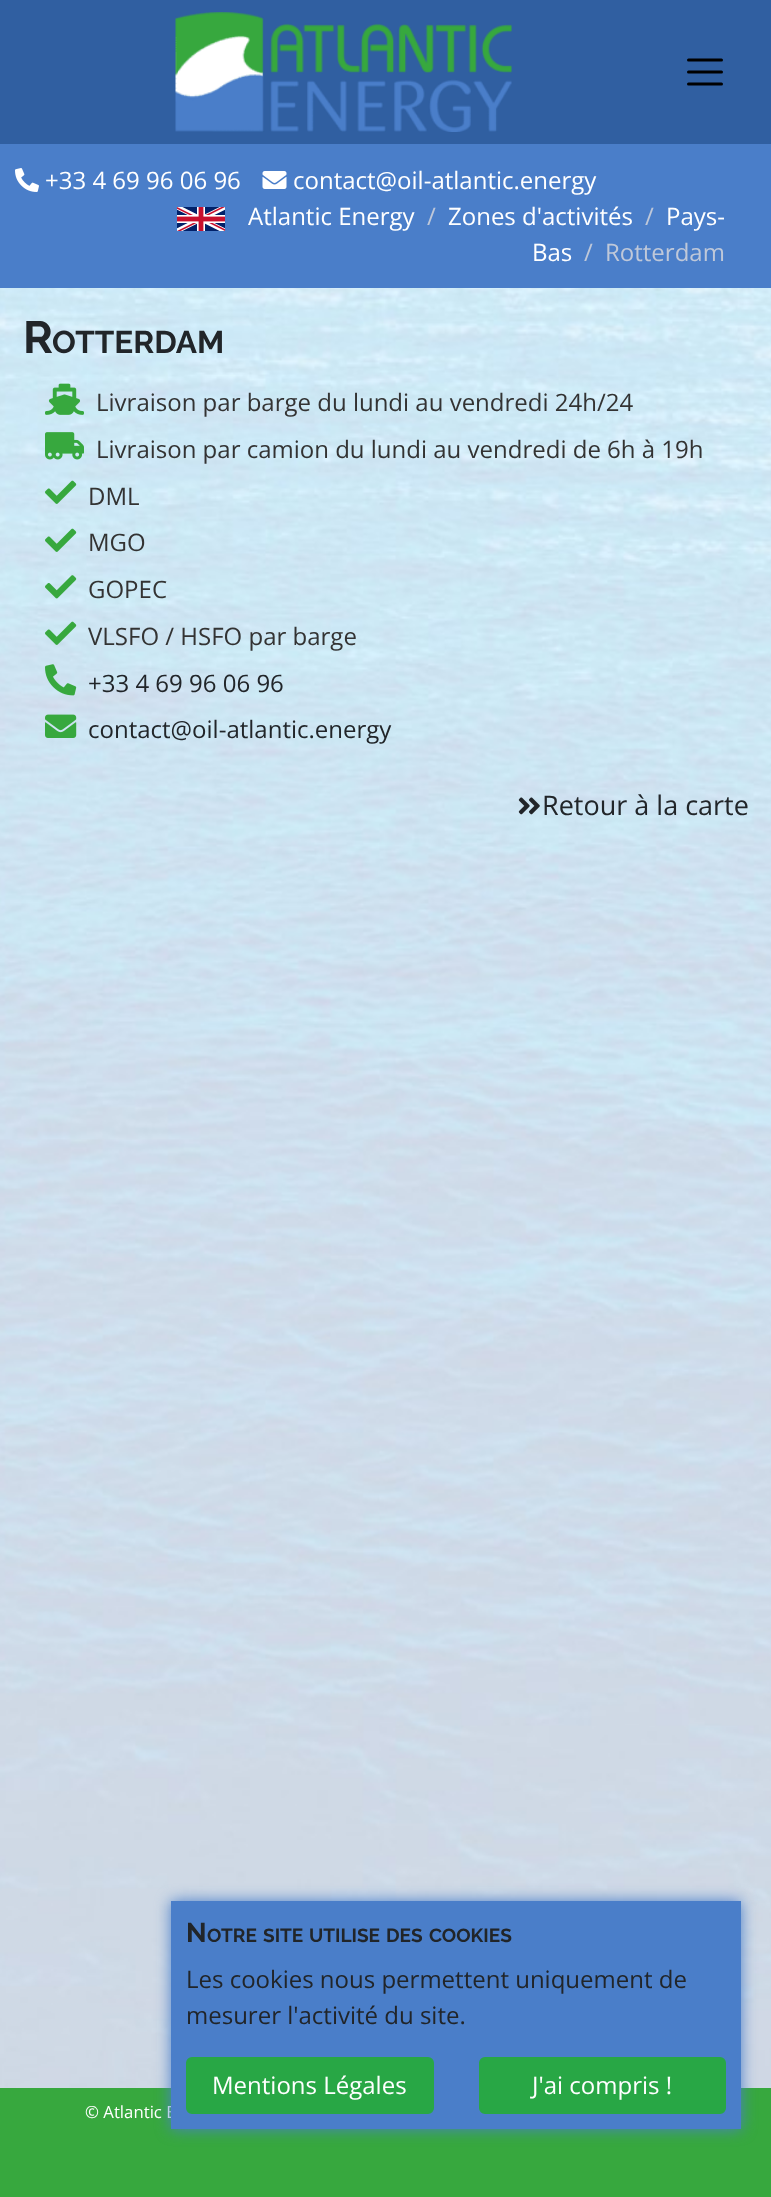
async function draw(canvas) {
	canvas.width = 771;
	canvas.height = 2197;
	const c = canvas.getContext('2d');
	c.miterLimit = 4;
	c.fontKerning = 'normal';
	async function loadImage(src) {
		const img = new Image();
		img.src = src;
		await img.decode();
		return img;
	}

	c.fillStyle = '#fff';
	c.fillRect(0, 0, 771, 2197);
	c.drawImage(await loadImage('img1.png'), 0, 288, 771, 1800);
	c.fillStyle = '#305fa1';
	c.fillRect(0, 0, 771, 144);
	c.drawImage(await loadImage('img2.png'), 175, 12, 337, 120);
	c.beginPath();
	c.moveTo(688.5, 60);
	c.lineTo(721.5, 60);
	c.moveTo(688.5, 72);
	c.lineTo(721.5, 72);
	c.moveTo(688.5, 84);
	c.lineTo(721.5, 84);
	c.strokeStyle = '#000';
	c.lineWidth = 3;
	c.lineCap = 'round';
	c.stroke();
	c.fillStyle = '#4a7ec9';
	c.fillRect(0, 144, 771, 144);
	c.drawImage(await loadImage('img3.png'), 15, 168, 24, 24);
	c.font = '24px Open Sans';
	c.fillStyle = '#fff';
	c.fillText('+33 4 69 96 06 96', 45, 189);
	c.drawImage(await loadImage('img4.png'), 262, 171, 25, 18);
	c.fillText('contact@oil-atlantic.energy', 293, 189);
	c.drawImage(await loadImage('img5.png'), 177, 207, 48, 24);
	c.fillText('Atlantic Energy', 248, 225);
	c.fillStyle = '#bfc8d9';
	c.fillText('/', 427, 225);
	c.fillStyle = '#fff';
	c.fillText('Zones d\'activités', 448, 225);
	c.fillStyle = '#bfc8d9';
	c.fillText('/', 645, 225);
	c.fillStyle = '#fff';
	c.fillText('Pays-', 666, 225);
	c.fillText('Bas', 532, 261);
	c.fillStyle = '#bfc8d9';
	c.fillText('/', 584, 261);
	c.fillText('Rotterdam', 605, 261);
	c.font = '100 45px Raleway';
	c.fillStyle = '#212529';
	c.fillText('R', 23, 353);
	c.font = '100 31.5px Raleway';
	c.fillText('OTTERDAM', 52, 353);
	c.drawImage(await loadImage('img6.png'), 45, 383, 39, 32);
	c.font = '24px Open Sans';
	c.fillStyle = '#333';
	c.fillText('Livraison par barge du lundi au vendredi 24h/24', 96, 411);
	c.drawImage(await loadImage('img7.png'), 45, 432, 39, 28);
	c.fillText('Livraison par camion du lundi au vendredi de 6h à 19h', 96, 458);
	c.drawImage(await loadImage('img8.png'), 45, 480, 32, 24);
	c.fillText('DML', 88, 505);
	c.drawImage(await loadImage('img9.png'), 45, 528, 32, 24);
	c.fillText('MGO', 88, 551);
	c.drawImage(await loadImage('img10.png'), 45, 575, 32, 24);
	c.fillText('GOPEC', 88, 598);
	c.drawImage(await loadImage('img11.png'), 45, 621, 32, 24);
	c.fillText('VLSFO / HSFO par barge', 88, 645);
	c.drawImage(await loadImage('img12.png'), 45, 664, 32, 32);
	c.fillStyle = '#212529';
	c.fillText('+33 4 69 96 06 96', 88, 692);
	c.drawImage(await loadImage('img13.png'), 45, 714, 32, 24);
	c.fillText('contact@oil-atlantic.energy', 88, 738);
	c.drawImage(await loadImage('img14.png'), 518, 797, 22, 18);
	c.font = '27px Open Sans';
	c.fillText('Retour à la carte', 542, 815);
	c.fillStyle = '#37a83e';
	c.fillRect(0, 2088, 771, 109);
	c.font = '16.75px Open Sans';
	c.fillStyle = '#fff';
	c.fillText('© Atlantic E', 85, 2118);
	c.fillStyle = '#4a7ec9';
	c.filter = 'blur(7.5px)';
	c.beginPath();
	c.rect(171, 1901, 570, 228);
	c.fill();
	c.filter = 'none';
	c.fillRect(171, 1901, 570, 228);
	c.font = '100 27px Raleway';
	c.fillStyle = '#212529';
	c.fillText('N', 186, 1942);
	c.font = '100 19px Raleway';
	for (const [text, x, y] of [
		['OTRE', 207, 1942],
		['SITE', 263, 1942],
		['UTILISE', 309, 1942],
		['DES', 386, 1942],
		['COOKIES', 429, 1942],
	]) {
		c.fillText(text, x, y);
	}
	c.font = '24px Open Sans';
	c.fillText('Les cookies nous permettent uniquement de', 186, 1988);
	c.fillText('mesurer l\'activité du site.', 186, 2024);
	c.fillStyle = '#28a745';
	c.beginPath();
	c.roundRect(187, 2058, 246, 55, 5);
	c.fill();
	c.strokeStyle = '#28a745';
	c.lineWidth = 2;
	c.stroke();
	c.fillStyle = '#fff';
	c.fillText('Mentions Légales', 212, 2094);
	c.fillStyle = '#28a745';
	c.beginPath();
	c.roundRect(480, 2058, 245, 55, 5);
	c.fill();
	c.stroke();
	c.fillStyle = '#fff';
	c.fillText('J\'ai compris !', 532, 2094);
}

draw(document.querySelector('canvas'));
